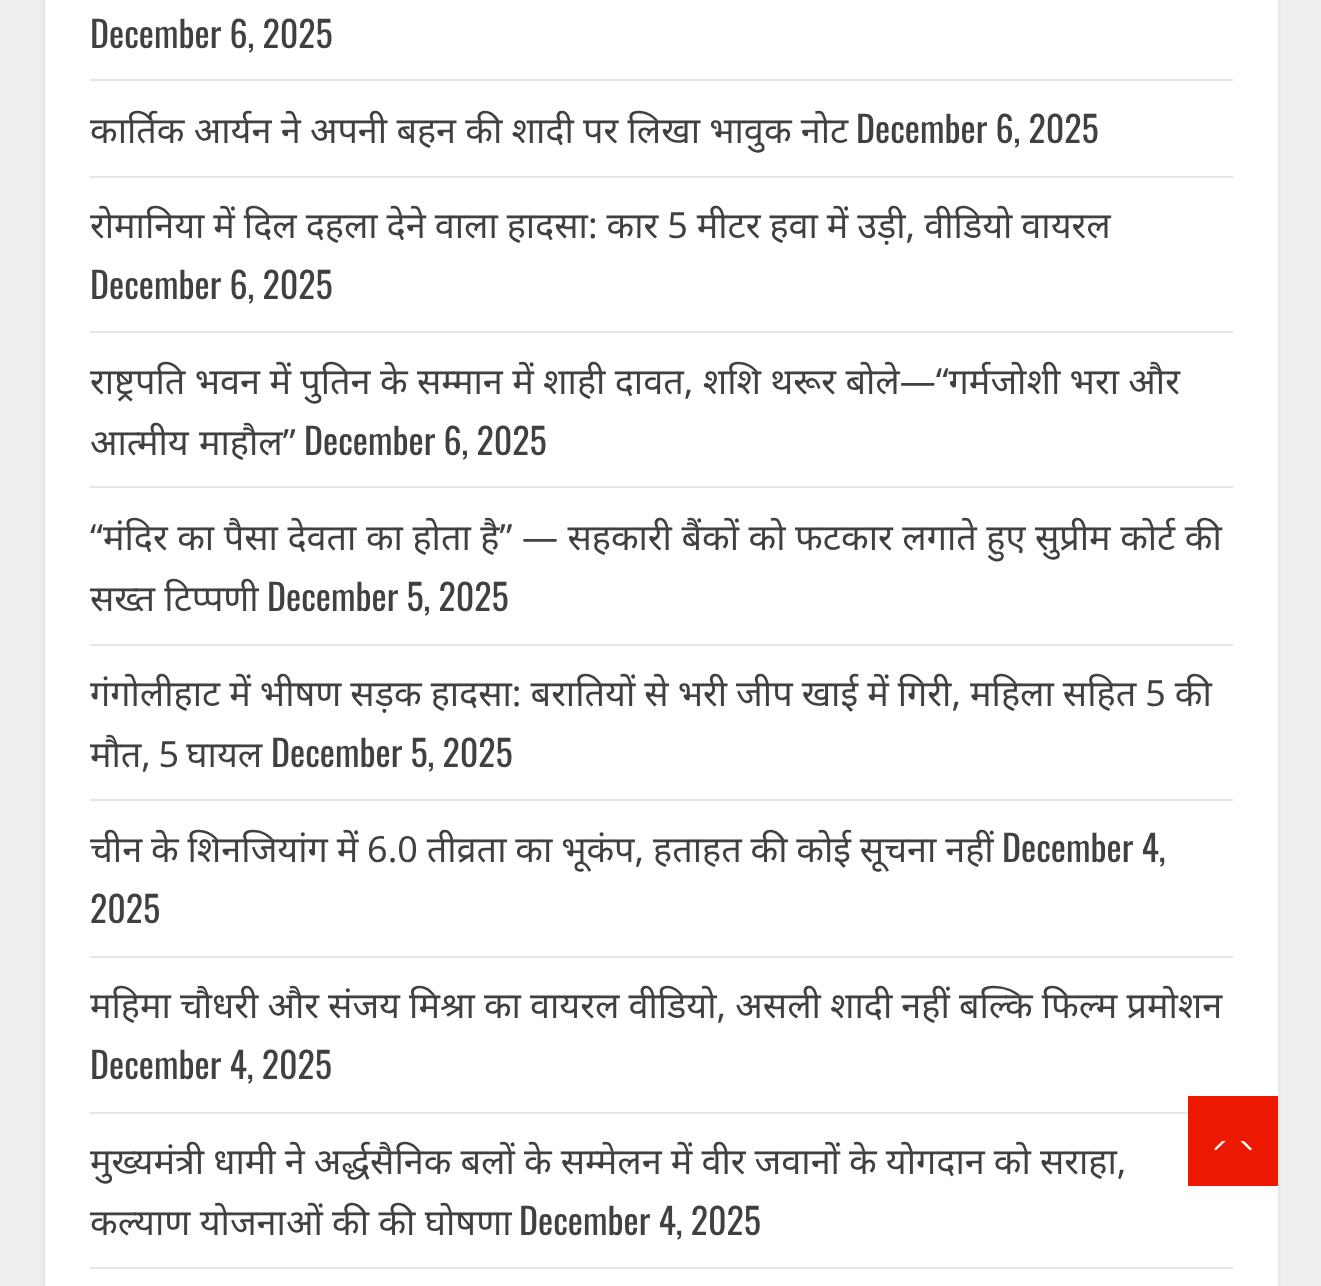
async function draw(canvas) {
	canvas.width = 1321;
	canvas.height = 1286;
	const c = canvas.getContext('2d');
	c.miterLimit = 4;
	c.fontKerning = 'normal';

	c.fillStyle = '#eee';
	c.fillRect(0, 0, 1321, 1286);
	c.fillStyle = '#00000014';
	c.filter = 'blur(2px)';
	c.beginPath();
	c.rect(45, -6, 1233, 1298);
	c.fill();
	c.filter = 'none';
	c.fillStyle = '#fff';
	c.fillRect(45, 0, 1233, 1286);
	c.fillStyle = '#e6e6e6';
	c.fillRect(90, 79, 1143, 2);
	c.font = '36px Oswald';
	c.fillStyle = '#404040';
	c.fillText('December 6, 2025', 90, 48);
	c.fillStyle = '#e6e6e6';
	c.fillRect(90, 176, 1143, 2);
	c.wordSpacing = '-0.1px';
	c.font = '36px Noto Sans';
	c.fillStyle = '#404040';
	c.fillText('कार्तिक आर्यन ने अपनी बहन की शादी पर लिखा भावुक नोट', 90, 143);
	c.wordSpacing = '0px';
	c.font = '36px Oswald';
	c.fillText('December 6, 2025', 856, 143);
	c.fillStyle = '#e6e6e6';
	c.fillRect(90, 331, 1143, 2);
	c.wordSpacing = '-0.4px';
	c.font = '36px Noto Sans';
	c.fillStyle = '#404040';
	c.fillText('रोमानिया में दिल दहला देने वाला हादसा: कार 5 मीटर हवा में उड़ी, वीडियो वायरल', 90, 238);
	c.wordSpacing = '0px';
	c.font = '36px Oswald';
	c.fillText('December 6, 2025', 90, 299);
	c.fillStyle = '#e6e6e6';
	c.fillRect(90, 486, 1143, 2);
	c.font = '36px Noto Sans';
	c.fillStyle = '#404040';
	c.fillText('राष्ट्रपति भवन में पुतिन के सम्मान में शाही दावत, शशि थरूर बोले—“गर्मजोशी भरा और', 90, 394);
	c.wordSpacing = '1px';
	c.fillText('आत्मीय माहौल”', 90, 455);
	c.wordSpacing = '0px';
	c.font = '36px Oswald';
	c.fillText('December 6, 2025', 304, 455);
	c.fillStyle = '#e6e6e6';
	c.fillRect(90, 644, 1143, 2);
	c.wordSpacing = '0.2px';
	c.font = '36px Noto Sans';
	c.fillStyle = '#404040';
	c.fillText('“मंदिर का पैसा देवता का होता है” — सहकारी बैंकों को फटकार लगाते हुए सुप्रीम कोर्ट की', 90, 550);
	c.wordSpacing = '0px';
	c.fillText('सख्त टिप्पणी', 90, 611);
	c.font = '36px Oswald';
	c.fillText('December 5, 2025', 267, 611);
	c.fillStyle = '#e6e6e6';
	c.fillRect(90, 799, 1143, 2);
	c.wordSpacing = '-0.3px';
	c.font = '36px Noto Sans';
	c.fillStyle = '#404040';
	c.fillText('गंगोलीहाट में भीषण सड़क हादसा: बरातियों से भरी जीप खाई में गिरी, महिला सहित 5 की', 90, 706);
	c.wordSpacing = '-2px';
	c.fillText('मौत, 5 घायल', 90, 767);
	c.wordSpacing = '0px';
	c.font = '36px Oswald';
	c.fillText('December 5, 2025', 271, 767);
	c.fillStyle = '#e6e6e6';
	c.fillRect(90, 956, 1143, 2);
	c.wordSpacing = '-0.5px';
	c.font = '36px Noto Sans';
	c.fillStyle = '#404040';
	c.fillText('चीन के शिनजियांग में 6.0 तीव्रता का भूकंप, हताहत की कोई सूचना नहीं', 90, 862);
	c.wordSpacing = '0px';
	c.font = '36px Oswald';
	c.fillText('December 4,', 1002, 862);
	c.fillText('2025', 90, 923);
	c.fillStyle = '#e6e6e6';
	c.fillRect(90, 1112, 1098, 2);
	c.wordSpacing = '-0.25px';
	c.font = '36px Noto Sans';
	c.fillStyle = '#404040';
	c.fillText('महिमा चौधरी और संजय मिश्रा का वायरल वीडियो, असली शादी नहीं बल्कि फिल्म प्रमोशन', 90, 1018);
	c.wordSpacing = '0px';
	c.font = '36px Oswald';
	c.fillText('December 4, 2025', 90, 1079);
	c.fillStyle = '#e6e6e6';
	c.fillRect(90, 1267, 1143, 2);
	c.wordSpacing = '-0.25px';
	c.font = '36px Noto Sans';
	c.fillStyle = '#404040';
	c.fillText('मुख्यमंत्री धामी ने अर्द्धसैनिक बलों के सम्मेलन में वीर जवानों के योगदान को सराहा,', 90, 1174);
	c.wordSpacing = '0px';
	c.fillText('कल्याण योजनाओं की की घोषणा', 90, 1235);
	c.font = '36px Oswald';
	c.fillText('December 4, 2025', 519, 1235);
	c.fillStyle = '#ed1800';
	c.fillRect(1188, 1096, 90, 90);
	c.fillStyle = '#fff';
	c.beginPath();
	c.moveTo(1222, 1152);
	c.lineTo(1244, 1152);
	c.bezierCurveTo(1247, 1152, 1250, 1151, 1252, 1149);
	c.lineTo(1244, 1141);
	c.lineTo(1222, 1141);
	c.lineTo(1214, 1149);
	c.bezierCurveTo(1216, 1151, 1219, 1152, 1222, 1152);
	c.closePath();
	c.fill();
	c.fillStyle = '#ed1800';
	c.beginPath();
	c.moveTo(1256, 1156);
	c.lineTo(1210, 1156);
	c.lineTo(1233, 1134);
	c.closePath();
	c.fill();
}

draw(document.querySelector('canvas'));
